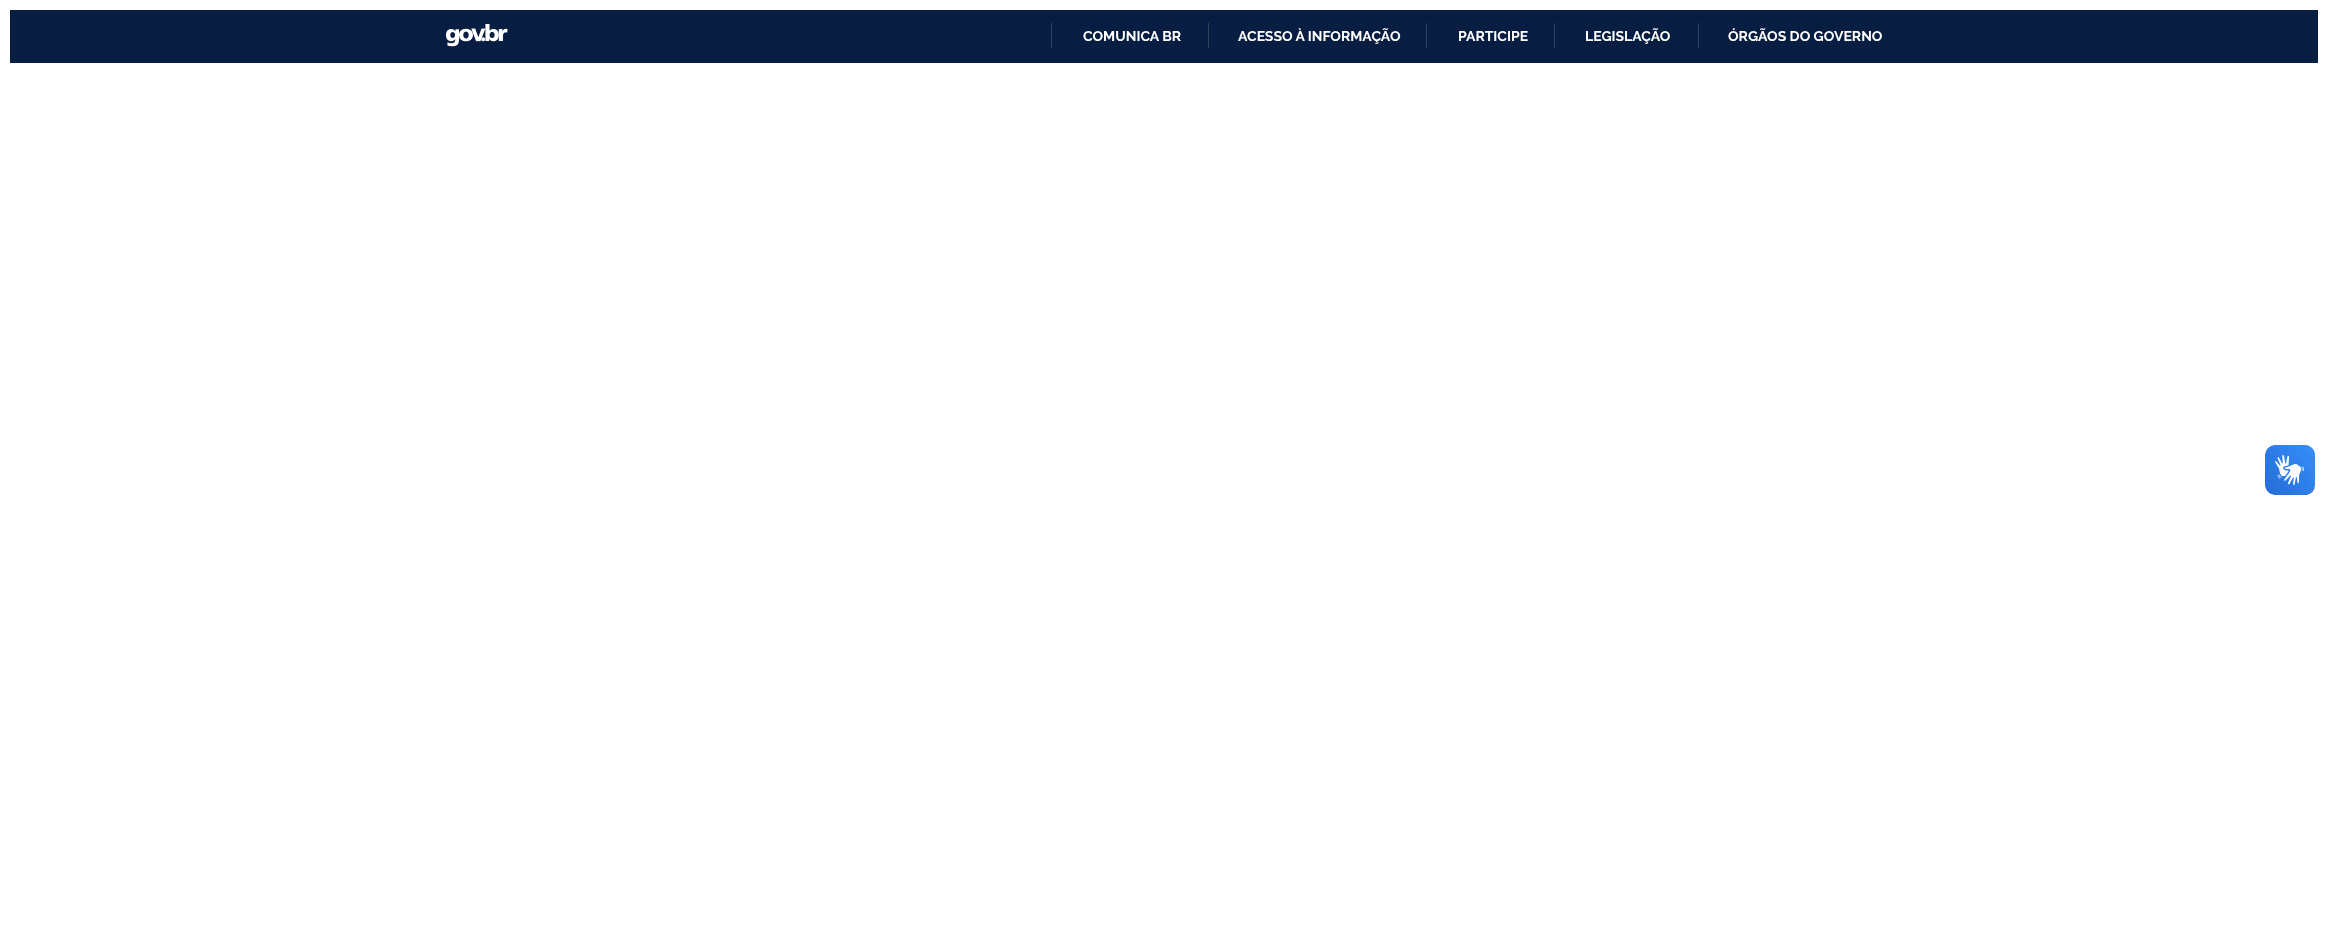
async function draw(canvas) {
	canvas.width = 2327;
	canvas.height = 940;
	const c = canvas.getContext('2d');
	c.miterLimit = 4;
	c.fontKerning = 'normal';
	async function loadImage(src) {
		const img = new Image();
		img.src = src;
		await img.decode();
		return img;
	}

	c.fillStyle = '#fff';
	c.fillRect(0, 0, 2327, 940);
	c.fillStyle = '#071d41';
	c.fillRect(10, 10, 2308, 53);
	c.drawImage(await loadImage('img1.png'), 446, 24, 62, 23);
	c.fillStyle = '#32425b';
	c.fillRect(1051, 23, 1, 25);
	c.font = 'bold 14px Raleway';
	c.fillStyle = '#fff';
	c.fillText('COMUNICA BR', 1083, 41);
	c.fillStyle = '#32425b';
	c.fillRect(1208, 23, 1, 25);
	c.fillStyle = '#fff';
	c.fillText('ACESSO À INFORMAÇÃO', 1238, 41);
	c.fillStyle = '#32425b';
	c.fillRect(1426, 23, 1, 25);
	c.fillStyle = '#fff';
	c.fillText('PARTICIPE', 1458, 41);
	c.fillStyle = '#32425b';
	c.fillRect(1554, 23, 1, 25);
	c.fillStyle = '#fff';
	c.fillText('LEGISLAÇÃO', 1585, 41);
	c.fillStyle = '#32425b';
	c.fillRect(1698, 23, 1, 25);
	c.fillStyle = '#fff';
	c.fillText('ÓRGÃOS DO GOVERNO', 1728, 41);
	c.drawImage(await loadImage('img2.png'), 2265, 445, 50, 50);
	c.drawImage(await loadImage('img3.png'), 2265, 445, 50, 50);
}

draw(document.querySelector('canvas'));
